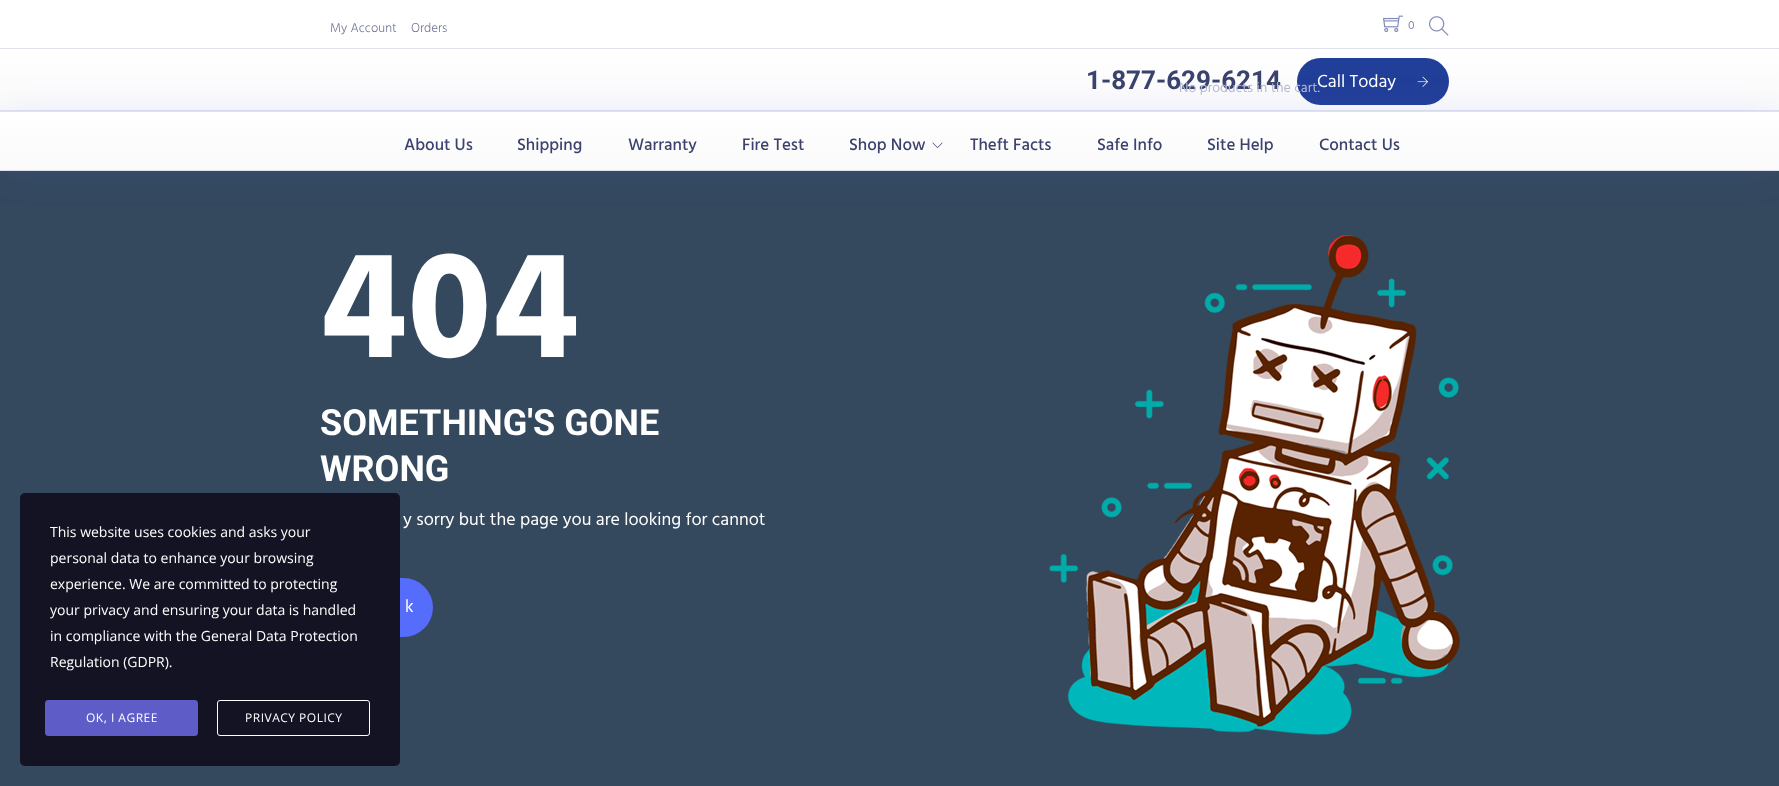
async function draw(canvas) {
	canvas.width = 1779;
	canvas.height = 786;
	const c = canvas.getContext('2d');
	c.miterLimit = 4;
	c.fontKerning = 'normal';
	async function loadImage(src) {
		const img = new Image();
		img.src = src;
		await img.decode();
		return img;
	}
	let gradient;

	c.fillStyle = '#34495e';
	c.fillRect(0, 0, 1779, 786);
	c.fillStyle = '#566dfb';
	c.beginPath();
	c.roundRect(320, 578, 113, 59, 29.5);
	c.fill();
	c.fillStyle = '#131323';
	c.beginPath();
	c.roundRect(20, 493, 380, 273, 5);
	c.fill();
	c.font = '14px Open Sans';
	c.fillStyle = '#fff';
	for (const [text, x, y] of [
		['This website uses cookies and asks your', 50, 537],
		['personal data to enhance your browsing', 50, 563],
		['experience. We are committed to protecting', 50, 589],
		['your privacy and ensuring your data is handled', 50, 615],
		['in compliance with the General Data Protection', 50, 641],
		['Regulation (GDPR).', 50, 667],
	]) {
		c.fillText(text, x, y);
	}
	c.fillStyle = '#5e5cc7';
	c.beginPath();
	c.roundRect(45.5, 700.5, 152, 35, 2.5);
	c.fill();
	c.strokeStyle = '#5e5cc7';
	c.stroke();
	c.letterSpacing = '0.5px';
	c.font = '12px Open Sans';
	c.fillStyle = '#fff';
	c.fillText('OK, I AGREE', 86, 722);
	c.beginPath();
	c.roundRect(217.5, 700.5, 152, 35, 2.5);
	c.strokeStyle = '#fff';
	c.stroke();
	c.fillText('PRIVACY POLICY', 245, 722);
	c.fillRect(0, 0, 1779, 48);
	c.letterSpacing = '0px';
	c.font = '300 13px Hind';
	c.fillStyle = '#717796';
	c.fillText('My Account', 330, 32);
	c.fillText('Orders', 411, 32);
	c.drawImage(await loadImage('img1.png'), 1383, 15, 20, 17);
	c.font = '12px Hind';
	c.fillStyle = '#848ab8';
	c.fillText('0', 1408, 29);
	gradient = c.createLinearGradient(890, 49, 890, 110);
	gradient.addColorStop(0, '#fff');
	gradient.addColorStop(1, '#fafafa');
	c.fillStyle = gradient;
	c.fillRect(0, 49, 1779, 61);
	c.font = 'bold 26px Roboto';
	c.fillStyle = '#3a426d';
	c.fillText('1-877-629-6214', 1086, 89);
	c.fillStyle = '#213e98';
	c.beginPath();
	c.roundRect(1297, 58, 152, 47, 23.5);
	c.fill();
	c.font = '18px Hind';
	c.fillStyle = '#fff';
	c.fillText('Call Today', 1317, 87);
	c.fillStyle = '#dfe2ed';
	c.fillRect(0, 110, 1779, 1);
	c.drawImage(await loadImage('img3.png'), 1417, 76, 11, 11);
	c.fillStyle = '#566dfb1a';
	c.filter = 'blur(18.5px)';
	c.beginPath();
	c.rect(0, 111, 1779, 60);
	c.fill();
	c.filter = 'none';
	c.font = '14px Hind';
	c.fillStyle = '#b3b9d1';
	c.fillText('No products in the cart.', 1179, 92);
	c.drawImage(await loadImage('img2.png'), 1429, 16, 20, 20);
	c.fillStyle = '#dfe2ed';
	c.fillRect(0, 48, 1779, 1);
	gradient = c.createLinearGradient(890, 112, 890, 170);
	gradient.addColorStop(0, '#fff');
	gradient.addColorStop(1, '#fafafa');
	c.fillStyle = gradient;
	c.fillRect(0, 112, 1779, 58);
	c.fillStyle = '#dfe2ed';
	c.fillRect(0, 111, 1779, 1);
	c.fillRect(0, 170, 1779, 1);
	c.font = '500 17px Hind';
	c.fillStyle = '#3a426d';
	for (const [text, x, y] of [
		['About Us', 404, 150],
		['Shipping', 517, 150],
		['Warranty', 628, 150],
		['Fire Test', 742, 150],
		['Shop Now', 849, 150],
	]) {
		c.fillText(text, x, y);
	}
	c.drawImage(await loadImage('img4.png'), 932, 142, 11, 6);
	for (const [text, x, y] of [
		['Theft Facts', 970, 150],
		['Safe Info', 1097, 150],
		['Site Help', 1207, 150],
		['Contact Us', 1319, 150],
	]) {
		c.fillText(text, x, y);
	}
	c.font = 'bold 155px Hind';
	c.fillStyle = '#fff';
	c.fillText('404', 320, 357);
	c.font = 'bold 36px Roboto';
	c.fillText('SOMETHING\'S GONE', 320, 435);
	c.fillText('WRONG', 320, 481);
	c.font = '18px Hind';
	c.fillText('y sorry but the page you are looking for cannot', 403, 525);
	c.fillText('k', 405, 612);
	c.drawImage(await loadImage('img5.png'), 1049, 235, 411, 500);
}

draw(document.querySelector('canvas'));
